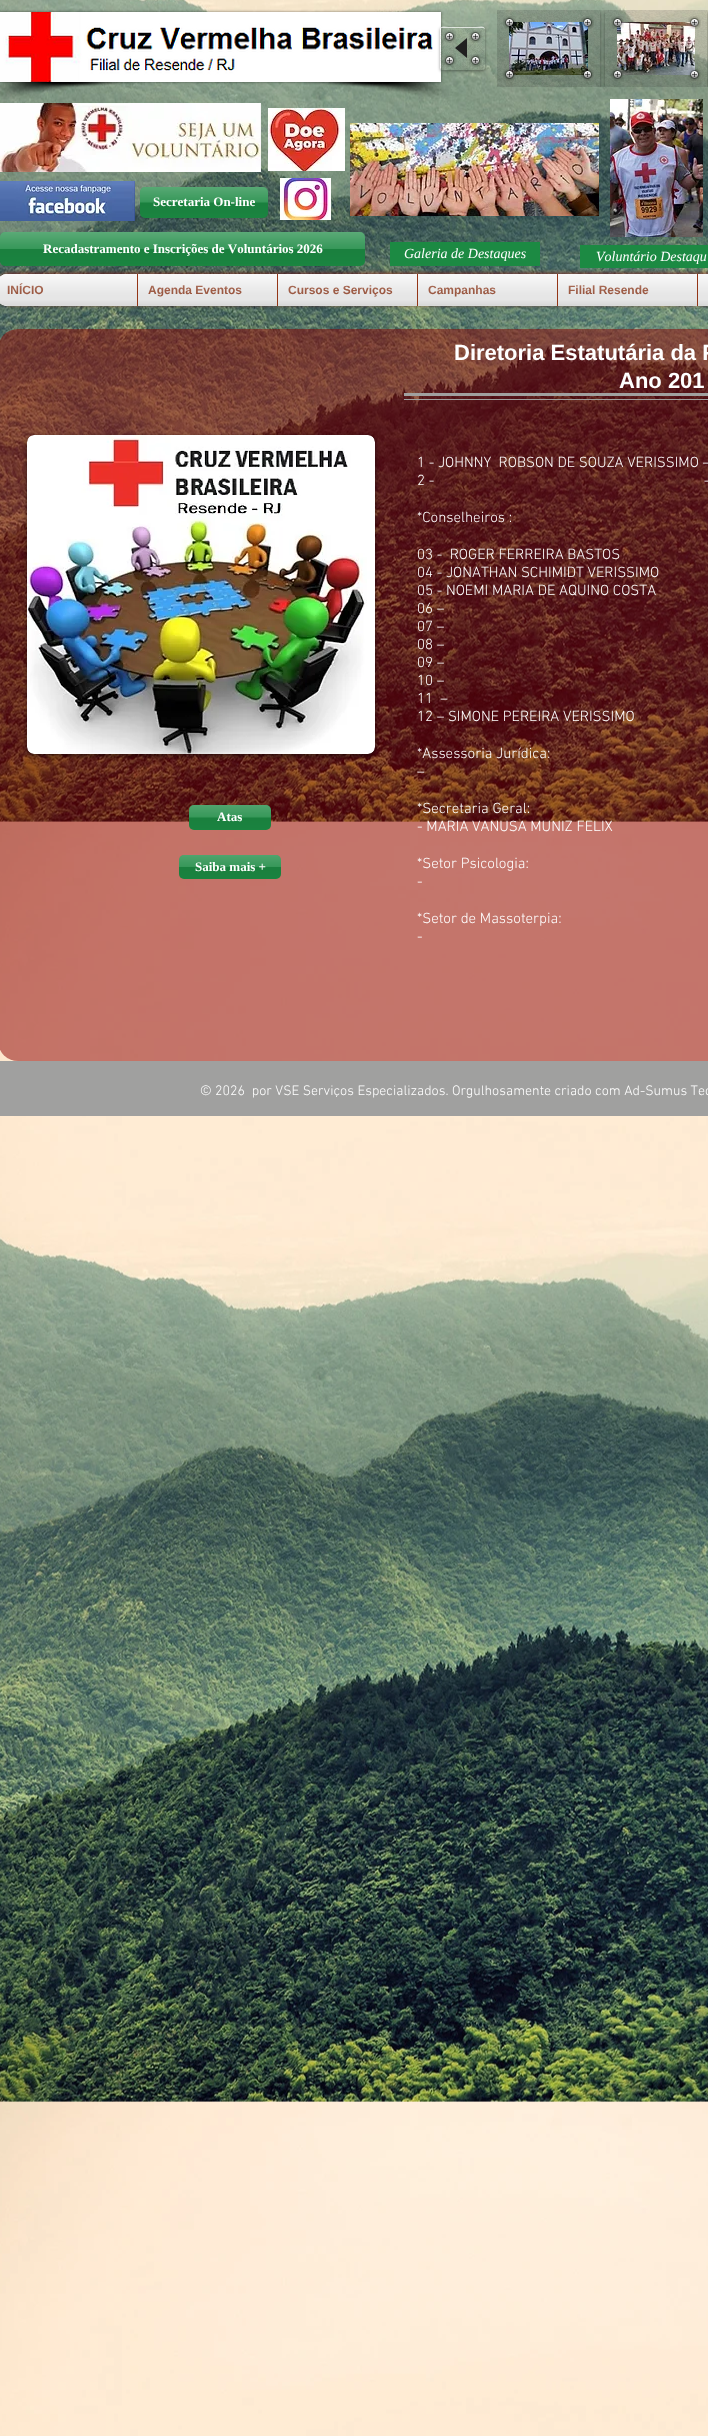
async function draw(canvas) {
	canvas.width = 708;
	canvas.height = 2436;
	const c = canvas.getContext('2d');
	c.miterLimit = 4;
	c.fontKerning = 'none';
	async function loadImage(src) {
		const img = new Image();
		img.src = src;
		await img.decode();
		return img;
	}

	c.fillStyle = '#fff';
	c.fillRect(0, 0, 708, 2436);
	c.drawImage(await loadImage('img1.png'), 0, 0, 708, 2436);
	c.fillStyle = '#00000080';
	c.filter = 'blur(1.5px)';
	c.beginPath();
	c.rect(0, 12, 441, 70);
	c.fill();
	c.filter = 'none';
	c.drawImage(await loadImage('img2.png'), 0, 12, 441, 70);
	c.drawImage(await loadImage('img3.png'), 0, 82, 137, 17);
	c.drawImage(await loadImage('img4.png'), 304, 82, 145, 17);
	c.save();
	c.beginPath();
	c.moveTo(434, 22);
	c.lineTo(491, 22);
	c.lineTo(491, 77);
	c.lineTo(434, 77);
	c.closePath();
	c.moveTo(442, 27);
	c.lineTo(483, 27);
	c.bezierCurveTo(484, 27, 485, 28, 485, 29);
	c.lineTo(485, 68);
	c.bezierCurveTo(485, 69, 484, 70, 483, 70);
	c.lineTo(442, 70);
	c.bezierCurveTo(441, 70, 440, 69, 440, 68);
	c.lineTo(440, 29);
	c.bezierCurveTo(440, 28, 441, 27, 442, 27);
	c.closePath();
	c.clip('evenodd');
	c.fillStyle = '#00000066';
	c.filter = 'blur(1.5px)';
	c.beginPath();
	c.roundRect(440, 28, 45, 43, 2);
	c.fill();
	c.filter = 'none';
	c.restore();
	c.drawImage(await loadImage('img5.png'), 440, 27, 45, 43);
	c.fillStyle = '#ffffffb3';
	c.beginPath();
	c.moveTo(442, 28);
	c.lineTo(483, 28);
	c.bezierCurveTo(484, 28, 485, 29, 485, 30);
	c.bezierCurveTo(485, 25, 480, 27, 476, 27);
	c.lineTo(449, 27);
	c.bezierCurveTo(445, 27, 440, 25, 440, 30);
	c.bezierCurveTo(440, 29, 441, 28, 442, 28);
	c.closePath();
	c.fill();
	c.fillStyle = '#202020';
	c.beginPath();
	c.moveTo(467, 38);
	c.lineTo(467, 58);
	c.lineTo(455, 48);
	c.closePath();
	c.fill();
	c.drawImage(await loadImage('img6.png'), 443, 30, 13, 13);
	c.drawImage(await loadImage('img7.png'), 469, 30, 13, 13);
	c.drawImage(await loadImage('img8.png'), 443, 54, 13, 13);
	c.drawImage(await loadImage('img9.png'), 469, 54, 13, 13);
	c.save();
	c.beginPath();
	c.rect(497, 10, 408, 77);
	c.clip();
	c.beginPath();
	c.rect(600, 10, 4, 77);
	c.clip();
	c.fillStyle = '#00000099';
	c.filter = 'blur(2px)';
	c.beginPath();
	c.rect(497, 11, 103, 77);
	c.fill();
	c.filter = 'none';
	c.restore();
	c.drawImage(await loadImage('img10.png'), 497, 10, 103, 77);
	c.fillStyle = '#2f2e2e26';
	c.fillRect(497, 10, 103, 77);
	c.drawImage(await loadImage('img12.png'), 509, 22, 79, 53);
	c.drawImage(await loadImage('img11.png'), 503, 16, 13, 13);
	c.drawImage(await loadImage('img13.png'), 581, 68, 13, 13);
	c.drawImage(await loadImage('img14.png'), 581, 16, 13, 13);
	c.drawImage(await loadImage('img15.png'), 503, 68, 13, 13);
	c.save();
	c.beginPath();
	c.rect(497, 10, 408, 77);
	c.clip();
	c.beginPath();
	c.moveTo(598, 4);
	c.lineTo(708, 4);
	c.lineTo(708, 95);
	c.lineTo(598, 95);
	c.closePath();
	c.moveTo(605, 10);
	c.lineTo(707, 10);
	c.lineTo(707, 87);
	c.lineTo(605, 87);
	c.closePath();
	c.clip('evenodd');
	c.fillStyle = '#00000099';
	c.filter = 'blur(2px)';
	c.beginPath();
	c.rect(605, 11, 102, 77);
	c.fill();
	c.filter = 'none';
	c.restore();
	c.drawImage(await loadImage('img16.png'), 605, 10, 102, 77);
	c.fillRect(605, 10, 102, 77);
	c.drawImage(await loadImage('img18.png'), 617, 22, 78, 53);
	c.drawImage(await loadImage('img17.png'), 611, 16, 13, 13);
	c.drawImage(await loadImage('img19.png'), 688, 68, 13, 13);
	c.drawImage(await loadImage('img20.png'), 688, 16, 13, 13);
	c.drawImage(await loadImage('img21.png'), 611, 68, 13, 13);
	c.drawImage(await loadImage('img22.png'), 0, 103, 261, 69);
	c.drawImage(await loadImage('img23.png'), 268, 108, 77, 63);
	c.drawImage(await loadImage('img24.png'), 350, 123, 249, 93);
	c.drawImage(await loadImage('img25.png'), 610, 99, 93, 138);
	c.drawImage(await loadImage('img26.png'), 0, 181, 135, 40);
	c.fillStyle = '#1c8a43';
	c.beginPath();
	c.roundRect(140, 187, 128, 31, 5);
	c.fill();
	c.drawImage(await loadImage('img27.png'), 140, 187, 128, 31);
	c.font = 'bold 13px Liberation Serif';
	c.fillStyle = '#fff';
	c.fillText('Secretaria On-line', 153, 206);
	c.drawImage(await loadImage('img28.png'), 280, 178, 51, 42);
	c.fillStyle = '#1c8a43';
	c.beginPath();
	c.roundRect(0, 232, 365, 34, 5);
	c.fill();
	c.drawImage(await loadImage('img29.png'), 0, 232, 365, 34);
	c.fillStyle = '#fff';
	c.fillText('Recadastramento e Inscrições de Voluntários 2026', 43, 253);
	c.fillStyle = '#1c8a43';
	c.fillRect(390, 242, 150, 24);
	c.font = 'italic 14px Liberation Serif';
	c.fillStyle = '#fff';
	c.fillText('Galeria de Destaques', 404, 258);
	c.fillStyle = '#1c8a43';
	c.fillRect(580, 245, 128, 23);
	c.fillStyle = '#fff';
	c.fillText('Voluntário Destaqu', 596, 261);
	c.save();
	c.beginPath();
	c.moveTo(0, 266);
	c.lineTo(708, 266);
	c.lineTo(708, 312);
	c.lineTo(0, 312);
	c.closePath();
	c.moveTo(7, 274);
	c.lineTo(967, 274);
	c.bezierCurveTo(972.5, 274, 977, 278.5, 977, 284);
	c.lineTo(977, 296);
	c.bezierCurveTo(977, 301.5, 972.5, 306, 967, 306);
	c.lineTo(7, 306);
	c.bezierCurveTo(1.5, 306, -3, 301.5, -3, 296);
	c.lineTo(-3, 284);
	c.bezierCurveTo(-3, 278.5, 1.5, 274, 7, 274);
	c.closePath();
	c.clip('evenodd');
	c.fillStyle = '#8b000099';
	c.filter = 'blur(2px)';
	c.beginPath();
	c.roundRect(-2, 273, 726, 32, 10);
	c.fill();
	c.filter = 'none';
	c.restore();
	c.fillStyle = '#fffffffc';
	c.beginPath();
	c.roundRect(-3, 274, 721, 32, 10);
	c.fill();
	c.drawImage(await loadImage('img30.png'), 0, 274, 7, 30);
	c.drawImage(await loadImage('img31.png'), 0, 274, 708, 30);
	c.beginPath();
	c.moveTo(7, 274);
	c.lineTo(137, 274);
	c.lineTo(137, 306);
	c.lineTo(7, 306);
	c.bezierCurveTo(1.5, 306, -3, 301.5, -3, 296);
	c.lineTo(-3, 284);
	c.bezierCurveTo(-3, 278.5, 1.5, 274, 7, 274);
	c.closePath();
	c.fill();
	c.font = 'bold 12px Liberation Sans';
	c.fillStyle = '#943616';
	c.fillText('INÍCIO', 7, 294);
	c.drawImage(await loadImage('img32.png'), 0, 276, 44, 18);
	c.drawImage(await loadImage('img33.png'), 0, 274, 137, 32);
	c.fillStyle = '#fffffffc';
	c.fillRect(138, 274, 139, 30);
	c.fillStyle = '#943616';
	c.fillRect(137, 274, 1, 32);
	c.fillText('Agenda Eventos', 148, 294);
	c.drawImage(await loadImage('img34.png'), 148, 285, 94, 12);
	c.drawImage(await loadImage('img35.png'), 138, 274, 139, 32);
	c.fillStyle = '#fffffffc';
	c.fillRect(278, 274, 139, 30);
	c.fillStyle = '#943616';
	c.fillRect(277, 274, 1, 32);
	c.fillText('Cursos e Serviços', 288, 294);
	c.drawImage(await loadImage('img36.png'), 288, 285, 105, 12);
	c.drawImage(await loadImage('img37.png'), 278, 274, 139, 32);
	c.fillStyle = '#fffffffc';
	c.fillRect(418, 274, 139, 30);
	c.fillStyle = '#943616';
	c.fillRect(417, 274, 1, 32);
	c.fillText('Campanhas', 428, 294);
	c.drawImage(await loadImage('img38.png'), 428, 285, 68, 12);
	c.drawImage(await loadImage('img39.png'), 418, 274, 139, 32);
	c.fillStyle = '#fffffffc';
	c.fillRect(558, 274, 139, 30);
	c.fillStyle = '#943616';
	c.fillRect(557, 274, 1, 32);
	c.fillText('Filial Resende', 568, 294);
	c.drawImage(await loadImage('img40.png'), 568, 285, 81, 10);
	c.drawImage(await loadImage('img41.png'), 558, 274, 139, 32);
	c.fillStyle = '#fffffffc';
	c.fillRect(698, 274, 10, 30);
	c.fillStyle = '#943616';
	c.fillRect(697, 274, 1, 32);
	c.drawImage(await loadImage('img42.png'), 698, 274, 10, 32);
	c.fillStyle = '#8b000082';
	c.beginPath();
	c.roundRect(-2, 329, 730, 732, 20);
	c.fill();
	c.font = 'bold 22px Liberation Sans';
	c.fillStyle = '#fff';
	c.fillText('Diretoria Estatutária da F', 454, 360);
	c.fillText('Ano 201', 619, 388);
	c.fillStyle = '#a0a09f';
	c.fillRect(404, 393, 304, 3);
	c.fillRect(404, 399, 304, 1);
	c.fillStyle = '#00000087';
	c.filter = 'blur(2.5px)';
	c.beginPath();
	c.roundRect(27, 437, 348, 319, 7);
	c.fill();
	c.filter = 'none';
	c.drawImage(await loadImage('img43.png'), 27, 435, 348, 319);
	c.font = '300 15px "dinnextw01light"';
	c.fillStyle = '#fff';
	for (const [text, x, y] of [
		['1 - JOHNNY  ROBSON DE SOUZA VERISSIMO –', 417, 467],
		['2 -                                                                         -', 417, 485],
		['*Conselheiros :', 417, 522],
		['03 -  ROGER FERREIRA BASTOS', 417, 559],
		['04 - JONATHAN SCHIMIDT VERISSIMO', 417, 577],
		['05 - NOEMI MARIA DE AQUINO COSTA', 417, 595],
		['06 –', 417, 613],
		['07 –', 417, 631],
		['08 –', 417, 649],
		['09 –', 417, 667],
		['10 –', 417, 685],
		['11  –', 417, 703],
		['12 – SIMONE PEREIRA VERISSIMO', 417, 721],
		['*Assessoria Jurídica:', 417, 758],
		['–', 417, 776],
		['*Secretaria Geral:', 417, 813],
		['- MARIA VANUSA MUNIZ FELIX', 417, 831],
		['*Setor Psicologia:', 417, 868],
		['-', 417, 886],
		['*Setor de Massoterpia:', 417, 923],
		['-', 417, 941],
	]) {
		c.fillText(text, x, y);
	}
	c.fillStyle = '#1c8a43';
	c.beginPath();
	c.roundRect(189, 805, 82, 25, 5);
	c.fill();
	c.drawImage(await loadImage('img44.png'), 189, 805, 82, 25);
	c.font = 'bold 13px Liberation Serif';
	c.fillStyle = '#fff';
	c.fillText('Atas', 217, 821);
	c.fillStyle = '#1c8a43';
	c.beginPath();
	c.roundRect(179, 855, 102, 24, 5);
	c.fill();
	c.drawImage(await loadImage('img45.png'), 179, 855, 102, 24);
	c.fillStyle = '#fff';
	c.fillText('Saiba mais +', 195, 871);
	c.fillStyle = '#a0a09f';
	c.fillRect(0, 1061, 708, 55);
	c.font = '300 14px "dinnextw01light"';
	c.fillStyle = '#fff';
	c.fillText('© 2026  por VSE Serviços Especializados. Orgulhosamente criado com Ad-Sumus Tec', 200, 1095);
}

draw(document.querySelector('canvas'));
